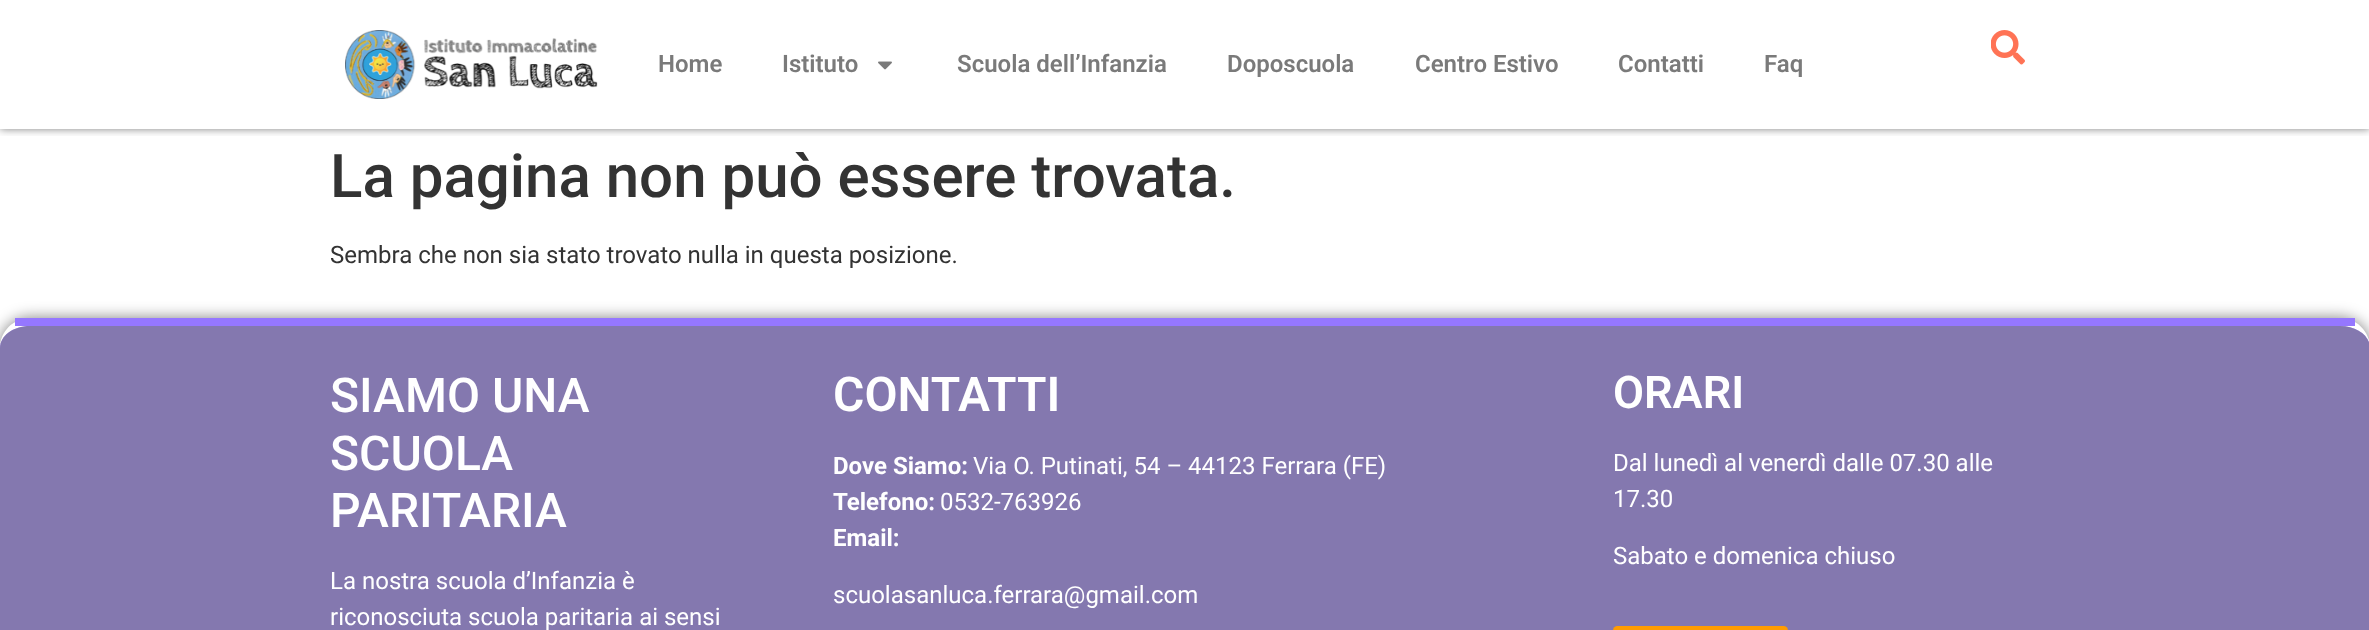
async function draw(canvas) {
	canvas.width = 2369;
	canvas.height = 630;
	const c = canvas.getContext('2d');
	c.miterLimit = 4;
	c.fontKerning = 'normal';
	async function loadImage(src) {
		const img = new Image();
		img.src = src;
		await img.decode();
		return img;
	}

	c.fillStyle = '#fff';
	c.fillRect(0, 0, 2369, 630);
	c.save();
	c.beginPath();
	c.rect(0, 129, 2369, 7);
	c.clip();
	c.fillStyle = '#00000080';
	c.filter = 'blur(4px)';
	c.beginPath();
	c.rect(0, 0, 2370, 129);
	c.fill();
	c.filter = 'none';
	c.restore();
	c.drawImage(await loadImage('img1.png'), 345, 30, 253, 69);
	c.font = '600 24px Roboto';
	c.fillStyle = '#7a7a7a';
	c.fillText('Home', 658, 72);
	c.fillText('Istituto', 782, 72);
	c.drawImage(await loadImage('img2.png'), 878, 61, 14, 9);
	for (const [text, x, y] of [
		['Scuola dell’Infanzia', 957, 72],
		['Doposcuola', 1227, 72],
		['Centro Estivo', 1415, 72],
		['Contatti', 1618, 72],
		['Faq', 1764, 72],
	]) {
		c.fillText(text, x, y);
	}
	c.drawImage(await loadImage('img3.png'), 1991, 30, 34, 35);
	c.font = '500 60px Roboto';
	c.fillStyle = '#333';
	c.fillText('La pagina non può essere trovata.', 330, 197);
	c.font = '24px Roboto';
	c.fillText('Sembra che non sia stato trovato nulla in questa posizione.', 330, 263);
	c.save();
	c.beginPath();
	c.moveTo(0, 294);
	c.lineTo(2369, 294);
	c.lineTo(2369, 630);
	c.lineTo(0, 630);
	c.closePath();
	c.moveTo(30, 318);
	c.lineTo(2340, 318);
	c.bezierCurveTo(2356.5, 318, 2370, 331.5, 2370, 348);
	c.lineTo(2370, 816);
	c.lineTo(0, 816);
	c.lineTo(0, 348);
	c.bezierCurveTo(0, 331.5, 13.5, 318, 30, 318);
	c.closePath();
	c.clip('evenodd');
	c.fillStyle = '#00000080';
	c.filter = 'blur(7.5px)';
	c.beginPath();
	c.roundRect(0, 318, 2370, 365, 30);
	c.fill();
	c.filter = 'none';
	c.restore();
	c.fillStyle = '#9577ff';
	c.beginPath();
	c.moveTo(30, 326);
	c.lineTo(2340, 326);
	c.bezierCurveTo(2357, 326, 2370, 336, 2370, 348);
	c.lineTo(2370, 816);
	c.lineTo(0, 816);
	c.lineTo(0, 348);
	c.bezierCurveTo(0, 336, 13, 326, 30, 326);
	c.closePath();
	c.fill();
	c.fillRect(15, 318, 2340, 8);
	c.fillStyle = '#7a7a7a99';
	c.beginPath();
	c.moveTo(30, 326);
	c.lineTo(2340, 326);
	c.bezierCurveTo(2357, 326, 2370, 336, 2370, 348);
	c.lineTo(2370, 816);
	c.lineTo(0, 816);
	c.lineTo(0, 348);
	c.bezierCurveTo(0, 336, 13, 326, 30, 326);
	c.closePath();
	c.fill();
	c.font = '500 48px Roboto';
	c.fillStyle = '#fff';
	for (const [text, x, y] of [
		['SIAMO UNA', 330, 412],
		['SCUOLA', 330, 470],
		['PARITARIA', 330, 527],
	]) {
		c.fillText(text, x, y);
	}
	c.font = '24px Roboto';
	c.fillText('La nostra scuola d’Infanzia è', 330, 589);
	c.fillText('riconosciuta scuola paritaria ai sensi', 330, 625);
	c.font = '600 48px Roboto';
	c.fillText('CONTATTI', 833, 411);
	c.font = 'bold 24px Roboto';
	c.fillText('Dove Siamo:', 833, 474);
	c.font = '24px Roboto';
	c.fillText('Via O. Putinati, 54 – 44123 Ferrara (FE)', 973, 474);
	c.font = 'bold 24px Roboto';
	c.fillText('Telefono:', 833, 510);
	c.font = '24px Roboto';
	c.fillText('0532-763926', 940, 510);
	c.font = 'bold 24px Roboto';
	c.fillText('Email:', 833, 546);
	c.font = '24px Roboto';
	c.fillText('scuolasanluca.ferrara@gmail.com', 833, 603);
	c.font = '600 45px Roboto';
	c.fillText('ORARI', 1613, 408);
	c.font = '24px Roboto';
	for (const [text, x, y] of [
		['Dal lunedì al venerdì dalle 07.30 alle', 1613, 471],
		['17.30', 1613, 507],
		['Sabato e domenica chiuso', 1613, 564],
	]) {
		c.fillText(text, x, y);
	}
	c.fillStyle = '#ff9c02';
	c.beginPath();
	c.roundRect(1613, 626, 175, 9, 5);
	c.fill();
}

draw(document.querySelector('canvas'));
